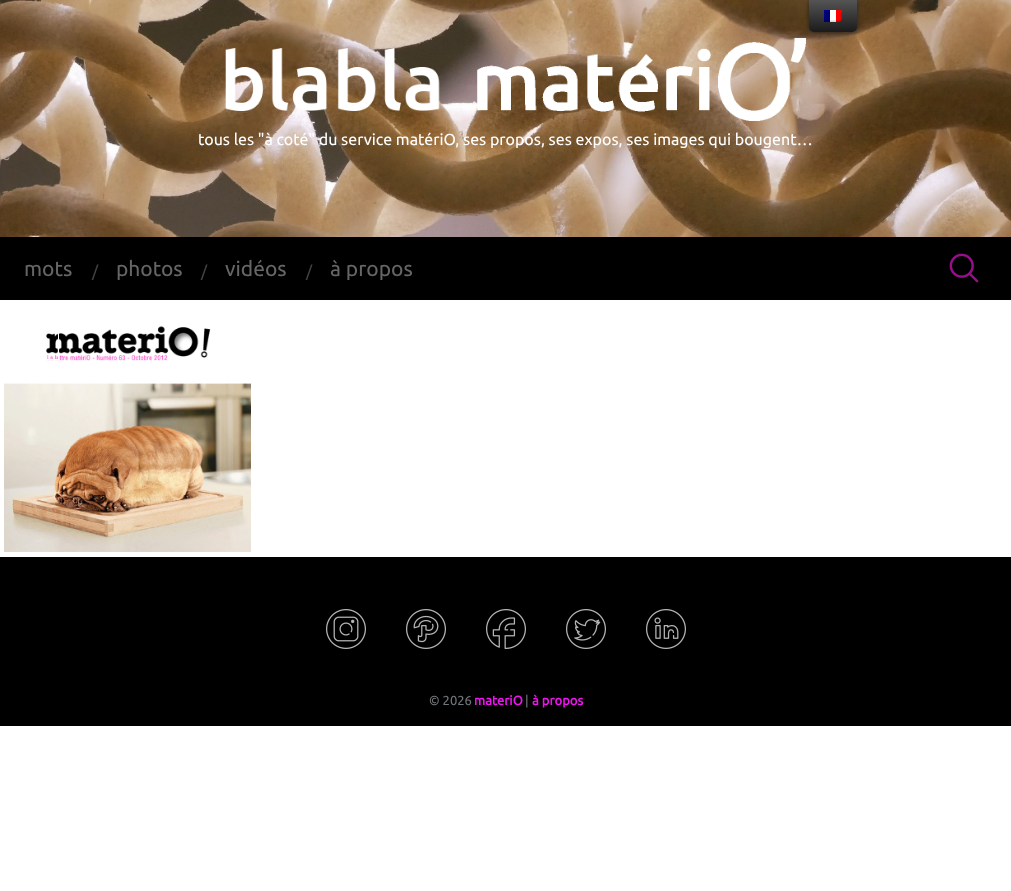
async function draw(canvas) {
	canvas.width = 1011;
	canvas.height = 891;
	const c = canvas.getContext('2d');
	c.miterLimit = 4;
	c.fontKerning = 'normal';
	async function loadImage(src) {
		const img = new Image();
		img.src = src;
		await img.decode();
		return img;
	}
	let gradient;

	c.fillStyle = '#fff';
	c.fillRect(0, 0, 1011, 891);
	c.drawImage(await loadImage('img2.png'), 0, 0, 1011, 237);
	c.drawImage(await loadImage('img3.png'), 225, 38, 581, 83);
	c.fillStyle = '#212121';
	c.filter = 'blur(2.5px)';
	c.beginPath();
	c.roundRect(809, 0, 48, 32, 5);
	c.fill();
	c.filter = 'none';
	gradient = c.createLinearGradient(833, 32, 833, 0);
	gradient.addColorStop(0, '#1b1b1b');
	gradient.addColorStop(1, '#545454');
	c.fillStyle = gradient;
	c.beginPath();
	c.roundRect(809, 0, 48, 32, [0, 0, 5, 5]);
	c.fill();
	c.drawImage(await loadImage('img1.png'), 824, 10, 18, 12);
	c.font = '16px Ubuntu';
	c.fillStyle = '#fff';
	c.fillText('tous les "à coté" du service matériO, ses propos, ses expos, ses images qui bougent…', 198, 145);
	c.fillStyle = '#000';
	c.fillRect(0, 237, 1011, 63);
	c.font = '21px Ubuntu';
	c.fillStyle = '#666';
	c.fillText('mots', 24, 276);
	c.font = '16px Ubuntu';
	c.fillStyle = '#444';
	c.fillText('/', 92, 277);
	c.font = '21px Ubuntu';
	c.fillStyle = '#666';
	c.fillText('photos', 116, 276);
	c.font = '16px Ubuntu';
	c.fillStyle = '#444';
	c.fillText('/', 201, 277);
	c.font = '21px Ubuntu';
	c.fillStyle = '#666';
	c.fillText('vidéos', 225, 276);
	c.font = '16px Ubuntu';
	c.fillStyle = '#444';
	c.fillText('/', 306, 277);
	c.font = '21px Ubuntu';
	c.fillStyle = '#666';
	c.fillText('à propos', 330, 276);
	c.drawImage(await loadImage('img4.png'), 949, 253, 30, 30);
	c.drawImage(await loadImage('img5.png'), 4, 326, 247, 226);
	c.strokeStyle = '#fff';
	c.strokeRect(14.5, 315.5, 44, 44);
	c.fillStyle = '#000';
	c.fillRect(0, 557, 1011, 169);
	c.drawImage(await loadImage('img6.png'), 326, 609, 40, 40);
	c.drawImage(await loadImage('img7.png'), 406, 609, 40, 40);
	c.drawImage(await loadImage('img8.png'), 486, 609, 40, 40);
	c.drawImage(await loadImage('img9.png'), 566, 609, 40, 40);
	c.drawImage(await loadImage('img10.png'), 646, 609, 40, 40);
	c.font = '13px Ubuntu';
	c.fillStyle = '#72777c';
	c.fillText('© 2026', 429, 705);
	c.font = 'bold 13px Ubuntu';
	c.fillStyle = '#f113f1';
	c.fillText('materiO', 474, 705);
	c.font = '13px Ubuntu';
	c.fillStyle = '#72777c';
	c.fillText('|', 525, 705);
	c.font = 'bold 13px Ubuntu';
	c.fillStyle = '#f113f1';
	c.fillText('à propos', 532, 705);
}

draw(document.querySelector('canvas'));
